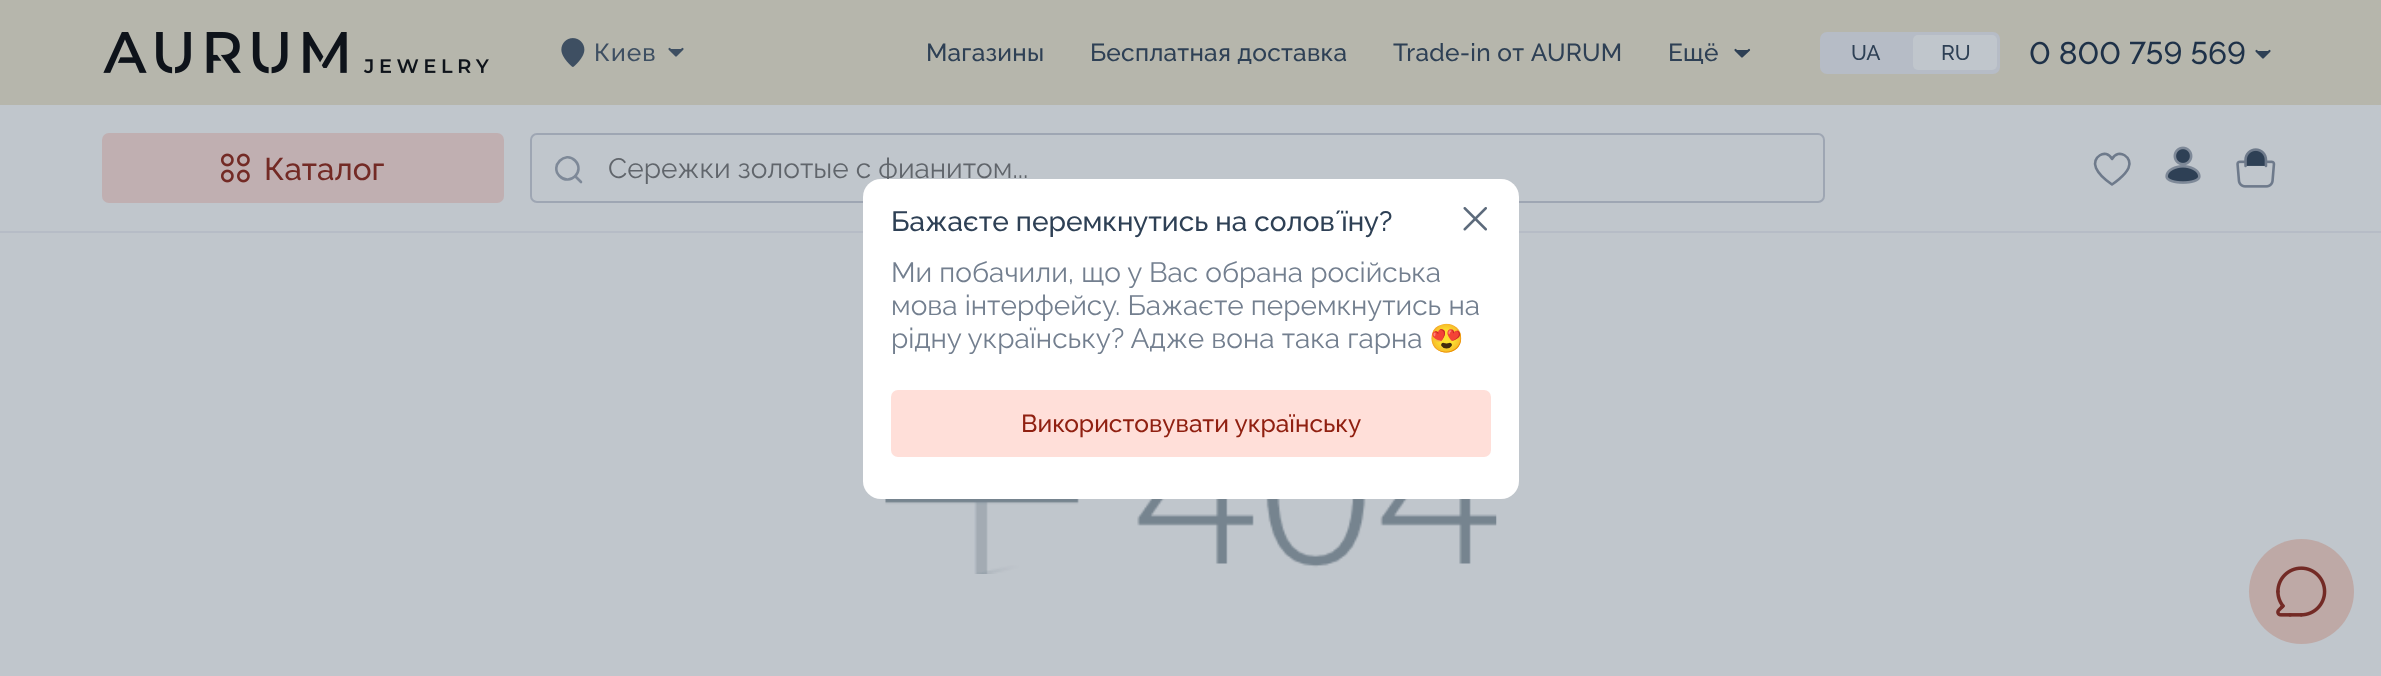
async function draw(canvas) {
	canvas.width = 2381;
	canvas.height = 676;
	const c = canvas.getContext('2d');
	c.miterLimit = 4;
	c.fontKerning = 'normal';
	async function loadImage(src) {
		const img = new Image();
		img.src = src;
		await img.decode();
		return img;
	}

	c.fillStyle = '#c0c6cc';
	c.fillRect(0, 0, 2381, 676);
	c.fillStyle = '#b6b6ac';
	c.fillRect(0, 0, 2381, 105);
	c.drawImage(await loadImage('img1.png'), 103, 32, 386, 42);
	c.drawImage(await loadImage('img2.png'), 561, 38, 24, 29);
	c.letterSpacing = '1px';
	c.font = '500 24.5px Raleway';
	c.fillStyle = '#3e4f62';
	c.fillText('Киев', 594, 61);
	c.beginPath();
	c.moveTo(669.5, 49);
	c.lineTo(676, 55.5);
	c.lineTo(682.5, 49);
	c.fill();
	c.strokeStyle = '#3e4f62';
	c.lineWidth = 2.2;
	c.lineCap = 'round';
	c.lineJoin = 'round';
	c.stroke();
	c.letterSpacing = '0.25px';
	c.fillStyle = '#2e4055';
	for (const [text, x, y] of [
		['Магазины', 926, 61],
		['Бесплатная доставка', 1090, 61],
		['Trade-in от AURUM', 1393, 61],
		['Ещё', 1668, 61],
	]) {
		c.fillText(text, x, y);
	}
	c.beginPath();
	c.moveTo(1735.5, 50);
	c.lineTo(1742, 56.5);
	c.lineTo(1749, 50);
	c.fill();
	c.strokeStyle = '#2e4055';
	c.stroke();
	c.fillStyle = '#b6bcc6';
	c.beginPath();
	c.roundRect(1820, 32, 180, 42, 7);
	c.fill();
	c.letterSpacing = '0px';
	c.font = '500 21px Raleway';
	c.fillStyle = '#2e4055';
	c.fillText('UA', 1851, 60);
	c.fillStyle = '#c0c6cc';
	c.beginPath();
	c.roundRect(1913, 35, 84, 35, 5);
	c.fill();
	c.fillStyle = '#2e4055';
	c.fillText('RU', 1941, 60);
	c.font = '500 31.5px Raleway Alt';
	c.fillStyle = '#1e3148';
	c.fillText('0 800 759 569', 2029, 64);
	c.fillStyle = '#2e4055';
	c.beginPath();
	c.moveTo(2256.5, 51);
	c.lineTo(2263, 57.5);
	c.lineTo(2269.5, 51);
	c.fill();
	c.stroke();
	c.fillStyle = '#b6bcc6';
	c.fillRect(0, 231, 2381, 2);
	c.fillStyle = '#c0afb1';
	c.beginPath();
	c.roundRect(102, 133, 402, 70, 7);
	c.fill();
	c.drawImage(await loadImage('img3.png'), 221, 153, 29, 30);
	c.font = '500 31.5px Raleway';
	c.fillStyle = '#732a25';
	c.fillText('Каталог', 264, 180);
	c.beginPath();
	c.roundRect(531, 134, 1293, 68, 6);
	c.strokeStyle = '#9ea6b3';
	c.lineWidth = 2;
	c.lineJoin = 'miter';
	c.stroke();
	c.beginPath();
	c.moveTo(575, 160.5);
	c.bezierCurveTo(585.5, 171, 570, 186.5, 559.5, 176);
	c.bezierCurveTo(549.5, 166, 565, 150.5, 575, 160.5);
	c.moveTo(581, 182);
	c.lineTo(575, 176);
	c.strokeStyle = '#7e8998';
	c.lineWidth = 2.6;
	c.lineJoin = 'round';
	c.stroke();
	c.font = '28px Raleway';
	c.fillStyle = '#60656b';
	c.fillText('Сережки золотые с фианитом...', 608, 178);
	c.beginPath();
	c.moveTo(2112, 184.5);
	c.bezierCurveTo(2112, 184.5, 2099.5, 176, 2096, 168);
	c.bezierCurveTo(2091, 157.5, 2106, 147.5, 2112, 159);
	c.bezierCurveTo(2118.5, 147.5, 2133.5, 157.5, 2128.5, 168);
	c.bezierCurveTo(2125, 176, 2112, 184.5, 2112, 184.5);
	c.closePath();
	c.strokeStyle = '#6e7a8b';
	c.stroke();
	c.drawImage(await loadImage('img4.png'), 2165, 146, 36, 38);
	c.drawImage(await loadImage('img5.png'), 2236, 148, 40, 40);
	c.fillStyle = '#fff';
	c.beginPath();
	c.roundRect(863, 179, 656, 320, 18);
	c.fill();
	c.drawImage(await loadImage('img6.png'), 1463, 207, 24, 24);
	c.font = '500 28px Raleway';
	c.fillStyle = '#2e4055';
	c.fillText('Бажаєте перемкнутись на соловʼїну?', 891, 231);
	c.font = '28px Raleway';
	c.fillStyle = '#737f8f';
	for (const [text, x, y] of [
		['Ми побачили, що у Вас обрана російська', 891, 282],
		['мова інтерфейсу. Бажаєте перемкнутись на', 891, 315],
		['рідну українську? Адже вона така гарна', 891, 348],
	]) {
		c.fillText(text, x, y);
	}
	c.font = '28px Noto Color Emoji';
	c.fillText('😍', 1429, 348);
	c.fillStyle = '#ffdfd9';
	c.beginPath();
	c.roundRect(891, 390, 600, 67, 7);
	c.fill();
	c.font = '500 24.5px Raleway';
	c.fillStyle = '#902011';
	c.fillText('Використовувати українську', 1021, 432);
	c.drawImage(await loadImage('img7.png'), 885, 499, 612, 75);
	c.fillStyle = '#bea9a6';
	c.beginPath();
	c.arc(2301.5, 591.5, 52.5, 0, 2 * Math.PI);
	c.fill();
	c.drawImage(await loadImage('img8.png'), 2276, 566, 51, 51);
}

draw(document.querySelector('canvas'));
